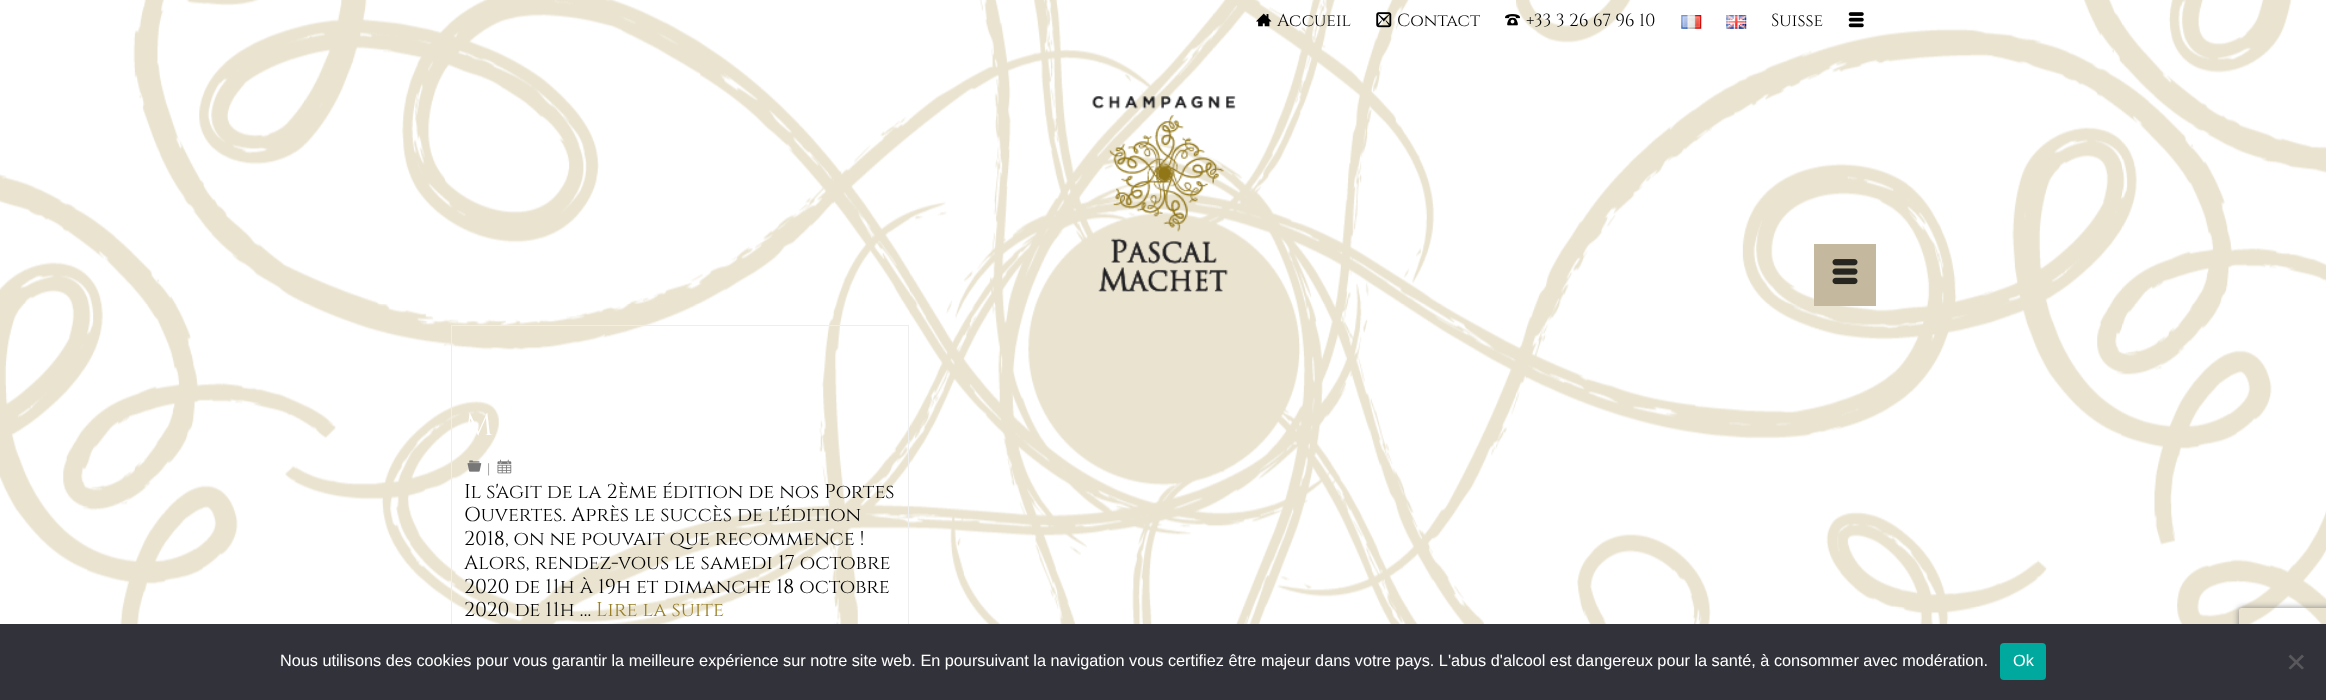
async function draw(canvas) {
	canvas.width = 2326;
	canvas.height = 700;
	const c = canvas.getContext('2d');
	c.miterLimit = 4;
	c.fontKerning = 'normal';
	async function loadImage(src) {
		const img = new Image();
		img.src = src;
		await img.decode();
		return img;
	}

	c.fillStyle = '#fff';
	c.fillRect(0, 0, 2326, 700);
	c.drawImage(await loadImage('img1.png'), 0, 0, 2326, 624);
	c.drawImage(await loadImage('img2.png'), 1256, 13, 16, 14);
	c.font = '17.5px Cinzel';
	c.fillStyle = '#000';
	c.fillText('Accueil', 1277, 26);
	c.drawImage(await loadImage('img3.png'), 1376, 12, 16, 16);
	c.fillText('Contact', 1397, 26);
	c.drawImage(await loadImage('img4.png'), 1505, 14, 15, 12);
	c.fillText('+33 3 26 67 96 10', 1526, 26);
	c.drawImage(await loadImage('img5.png'), 1681, 15, 21, 14);
	c.drawImage(await loadImage('img6.png'), 1726, 15, 21, 14);
	c.fillText('Suisse', 1771, 26);
	c.drawImage(await loadImage('img7.png'), 1848, 12, 16, 16);
	c.drawImage(await loadImage('img8.png'), 1092, 96, 144, 196);
	c.fillStyle = '#c4b99e';
	c.fillRect(1814, 244, 62, 62);
	c.drawImage(await loadImage('img9.png'), 1832, 259, 26, 26);
	c.strokeStyle = '#eee';
	c.strokeRect(451.5, 325.5, 457, 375);
	c.font = '31px Cinzel';
	c.fillStyle = '#fff';
	c.fillText('M', 464, 435);
	c.drawImage(await loadImage('img10.png'), 467, 460, 15, 12);
	c.font = '14px Cinzel';
	c.fillStyle = '#777';
	c.fillText('|', 487, 473);
	c.drawImage(await loadImage('img11.png'), 497, 459, 15, 15);
	c.font = '20px Cinzel';
	c.fillStyle = '#000';
	for (const [text, x, y] of [
		['Il s\'agit de la 2ème édition de nos Portes', 464, 498],
		['Ouvertes. Après le succès de l\'édition', 464, 521],
		['2018, on ne pouvait que recommence !', 464, 545],
		['Alors, rendez-vous le samedi 17 octobre', 464, 569],
		['2020 de 11h à 19h et dimanche 18 octobre', 464, 593],
		['2020 de 11h …', 464, 616],
	]) {
		c.fillText(text, x, y);
	}
	c.fillStyle = '#987f27';
	c.fillText('Lire la suite', 596, 616);
	c.save();
	c.beginPath();
	c.moveTo(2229, 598);
	c.lineTo(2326, 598);
	c.lineTo(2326, 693);
	c.lineTo(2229, 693);
	c.closePath();
	c.moveTo(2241.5, 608);
	c.lineTo(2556.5, 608);
	c.bezierCurveTo(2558, 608, 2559, 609, 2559, 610.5);
	c.lineTo(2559, 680.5);
	c.bezierCurveTo(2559, 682, 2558, 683, 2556.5, 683);
	c.lineTo(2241.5, 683);
	c.bezierCurveTo(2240, 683, 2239, 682, 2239, 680.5);
	c.lineTo(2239, 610.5);
	c.bezierCurveTo(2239, 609, 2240, 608, 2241.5, 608);
	c.closePath();
	c.clip('evenodd');
	c.fillStyle = '#808080';
	c.filter = 'blur(3px)';
	c.beginPath();
	c.roundRect(2239, 608, 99, 75, 2.5);
	c.fill();
	c.filter = 'none';
	c.restore();
	c.fillStyle = '#32323a';
	c.fillRect(0, 624, 2326, 76);
	c.font = '16.25px Liberation Sans';
	c.fillStyle = '#fff';
	c.fillText('Nous utilisons des cookies pour vous garantir la meilleure expérience sur notre site web. En poursuivant la navigation vous certifiez être majeur dans votre pays. L\'abus d\'alcool est dangereux pour la santé, à consommer avec modération.', 280, 666);
	c.fillStyle = '#00a99d';
	c.beginPath();
	c.roundRect(2000, 643, 46, 37, 4);
	c.fill();
	c.fillStyle = '#fff';
	c.fillText('Ok', 2013, 666);
	c.fillStyle = '#59595d';
	c.beginPath();
	c.moveTo(2302, 654.5);
	c.lineTo(2304, 656.5);
	c.lineTo(2290.5, 669.5);
	c.lineTo(2288.5, 668);
	c.closePath();
	c.fill();
	c.beginPath();
	c.moveTo(2288.5, 656.5);
	c.lineTo(2290.5, 654.5);
	c.lineTo(2304, 668);
	c.lineTo(2302, 669.5);
	c.closePath();
	c.fill();
}

draw(document.querySelector('canvas'));
